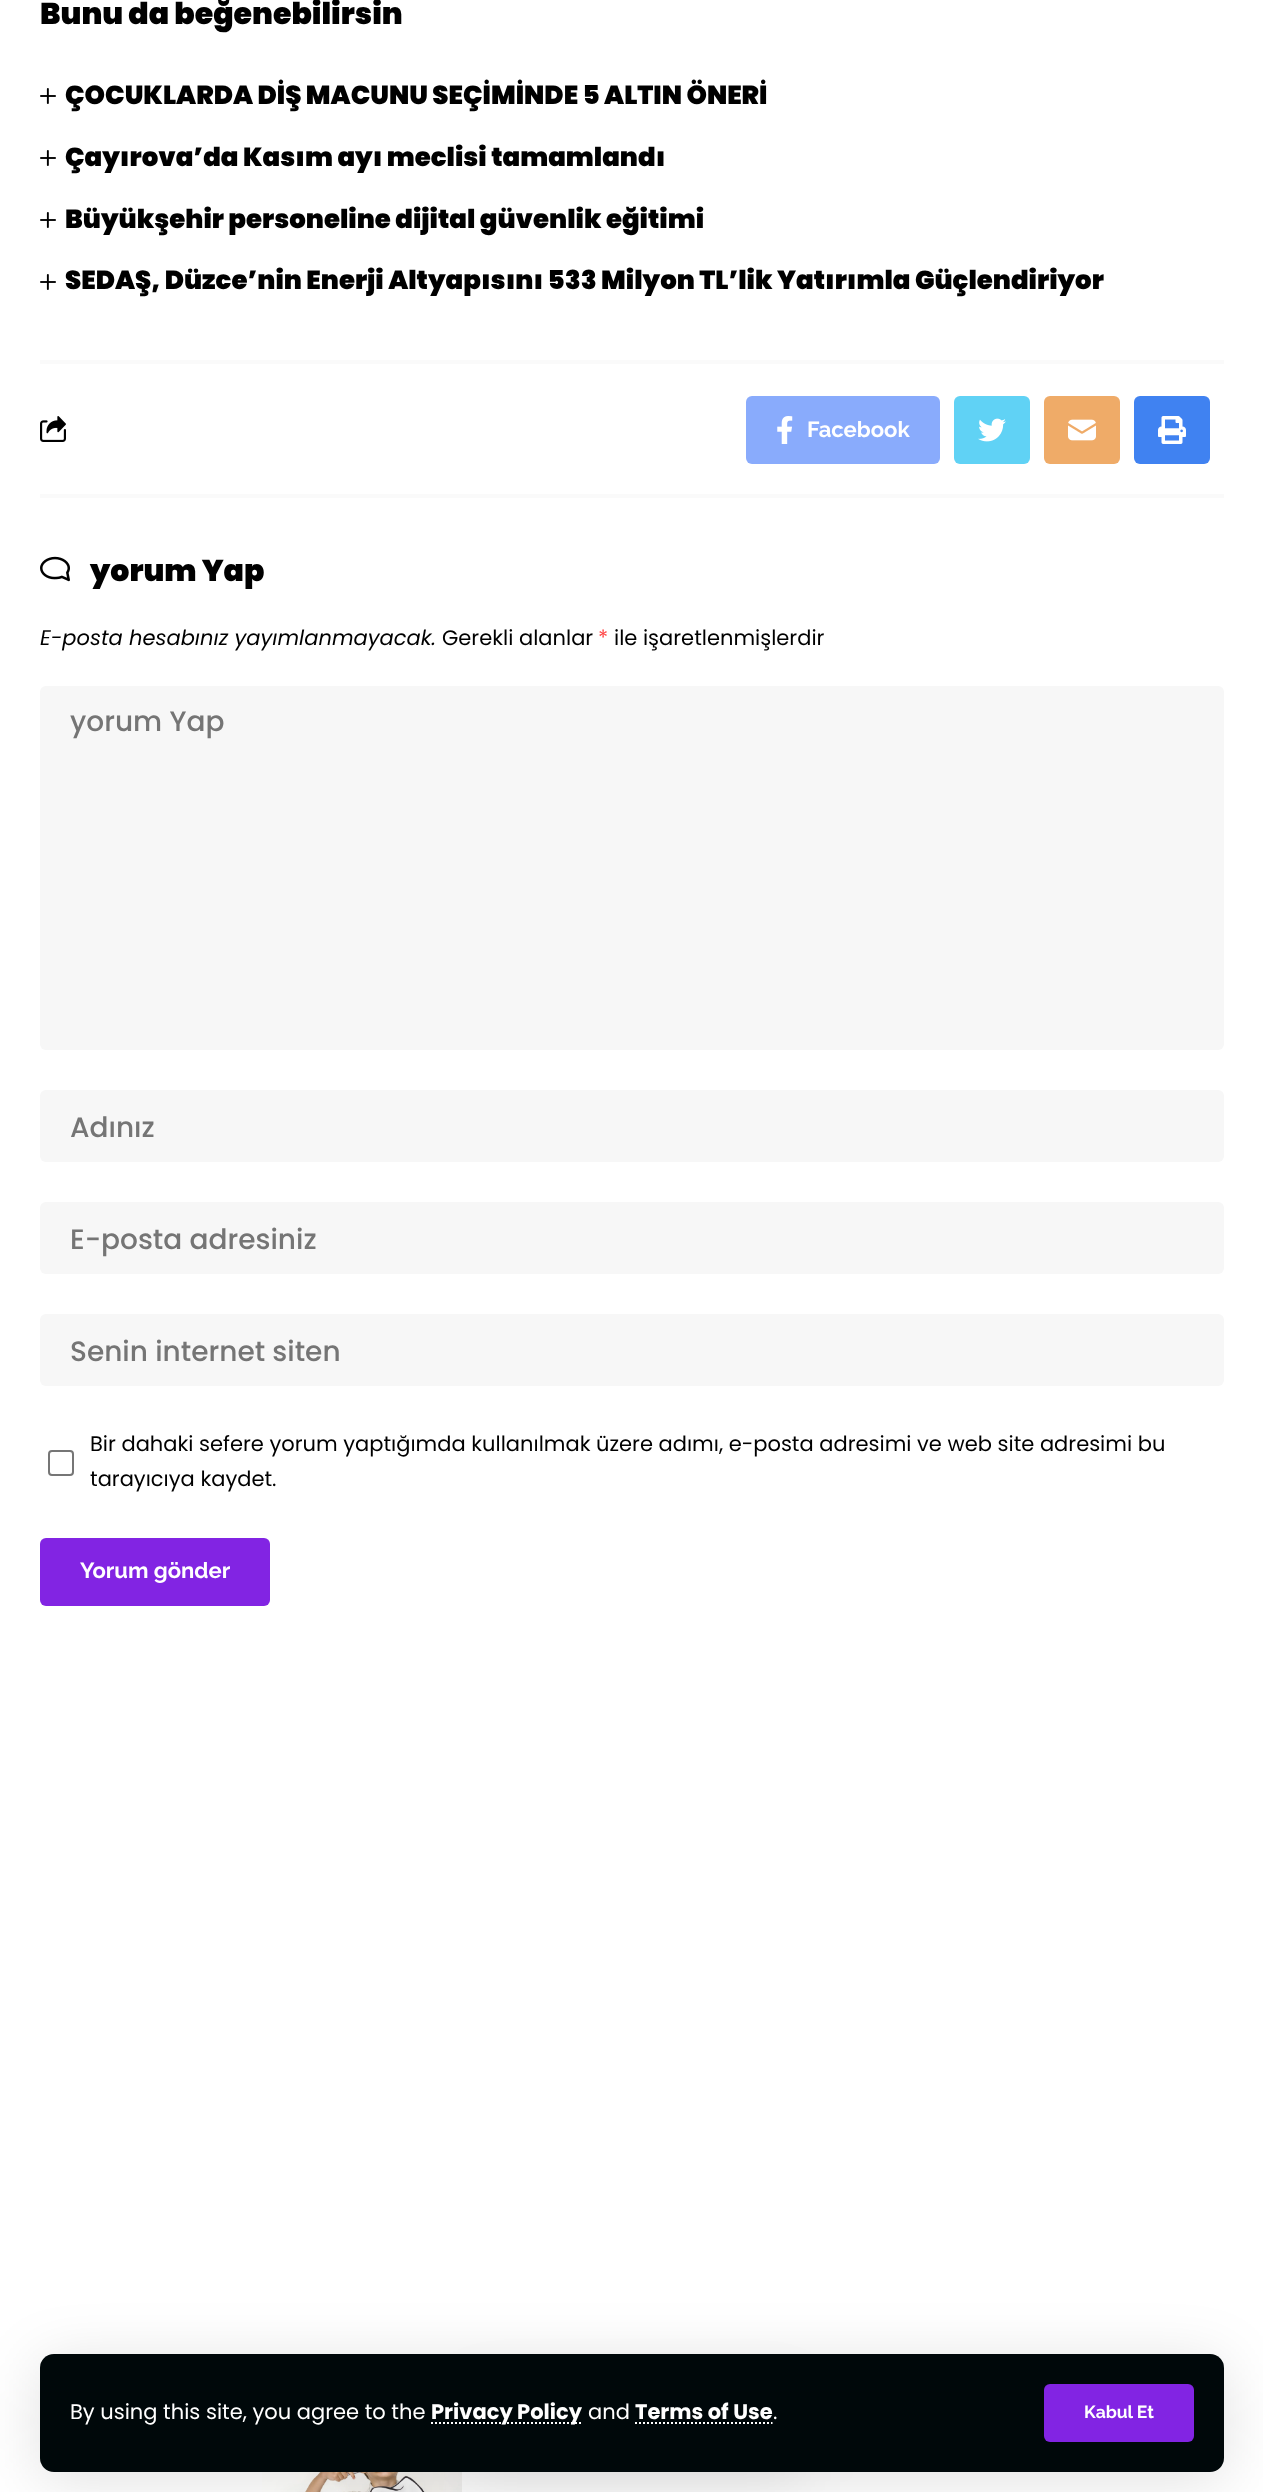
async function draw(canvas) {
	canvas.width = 1263;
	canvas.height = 2492;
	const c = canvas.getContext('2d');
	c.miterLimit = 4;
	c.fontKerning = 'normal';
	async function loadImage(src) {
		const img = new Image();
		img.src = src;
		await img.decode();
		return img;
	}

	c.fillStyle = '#fff';
	c.fillRect(0, 0, 1263, 2492);
	c.font = '900 30px Poppins';
	c.fillStyle = '#000';
	c.fillText('Bunu da beğenebilirsin', 40, 24);
	c.drawImage(await loadImage('img1.png'), 40, 88, 16, 16);
	c.font = '900 26px Poppins';
	c.fillText('ÇOCUKLARDA DİŞ MACUNU SEÇİMİNDE 5 ALTIN ÖNERİ', 65, 104);
	c.drawImage(await loadImage('img1.png'), 40, 150, 16, 16);
	c.fillText('Çayırova’da Kasım ayı meclisi tamamlandı', 65, 166);
	c.drawImage(await loadImage('img1.png'), 40, 212, 16, 16);
	c.fillText('Büyükşehir personeline dijital güvenlik eğitimi', 65, 228);
	c.drawImage(await loadImage('img1.png'), 40, 274, 16, 16);
	c.fillText('SEDAŞ, Düzce’nin Enerji Altyapısını 533 Milyon TL’lik Yatırımla Güçlendiriyor', 65, 289);
	c.drawImage(await loadImage('img8.png'), 262, 2472, 200, 20);
	c.fillStyle = '#00000012';
	c.filter = 'blur(30px)';
	c.beginPath();
	c.roundRect(464, 2392, 336, 90, 10);
	c.fill();
	c.filter = 'none';
	c.fillStyle = '#fafafa';
	c.fillRect(40, 360, 1184, 4);
	c.drawImage(await loadImage('img2.png'), 40, 416, 26, 26);
	c.fillStyle = '#89abfc';
	c.beginPath();
	c.roundRect(746, 396, 194, 68, 6);
	c.fill();
	c.drawImage(await loadImage('img3.png'), 777, 416, 16, 28);
	c.font = 'bold 22px Raleway';
	c.fillStyle = '#fff';
	c.fillText('Facebook', 807, 437);
	c.fillStyle = '#60d2f5';
	c.beginPath();
	c.roundRect(954, 396, 76, 68, 6);
	c.fill();
	c.drawImage(await loadImage('img4.png'), 978, 418, 28, 24);
	c.fillStyle = '#efab68';
	c.beginPath();
	c.roundRect(1044, 396, 76, 68, 6);
	c.fill();
	c.drawImage(await loadImage('img5.png'), 1068, 419, 28, 22);
	c.fillStyle = '#4082f1';
	c.beginPath();
	c.roundRect(1134, 396, 76, 68, 6);
	c.fill();
	c.drawImage(await loadImage('img6.png'), 1158, 416, 28, 28);
	c.fillStyle = '#fafafa';
	c.fillRect(40, 494, 1184, 4);
	c.drawImage(await loadImage('img7.png'), 40, 556, 30, 26);
	c.font = '900 30px Poppins';
	c.fillStyle = '#000';
	c.fillText('yorum Yap', 90, 581);
	c.font = 'italic 21px Poppins';
	c.fillText('E-posta hesabınız yayımlanmayacak.', 40, 645);
	c.font = '21px Poppins';
	c.fillText('Gerekli alanlar', 442, 645);
	c.fillStyle = '#ff4545';
	c.fillText('*', 598, 645);
	c.fillStyle = '#000';
	c.fillText('ile işaretlenmişlerdir', 614, 645);
	c.fillStyle = '#f7f7f7';
	c.beginPath();
	c.roundRect(40, 686, 1184, 364, 6);
	c.fill();
	c.font = '500 28px Poppins';
	c.fillStyle = '#757575';
	c.fillText('yorum Yap', 70, 731);
	c.fillStyle = '#f7f7f7';
	c.beginPath();
	c.roundRect(40, 1090, 1184, 72, 6);
	c.fill();
	c.fillStyle = '#757575';
	c.fillText('Adınız', 70, 1137);
	c.fillStyle = '#f7f7f7';
	c.beginPath();
	c.roundRect(40, 1202, 1184, 72, 6);
	c.fill();
	c.fillStyle = '#757575';
	c.fillText('E-posta adresiniz', 70, 1249);
	c.fillStyle = '#f7f7f7';
	c.beginPath();
	c.roundRect(40, 1314, 1184, 72, 6);
	c.fill();
	c.fillStyle = '#757575';
	c.fillText('Senin internet siten', 70, 1361);
	c.beginPath();
	c.roundRect(49, 1451, 24, 24, 3);
	c.strokeStyle = '#767676';
	c.lineWidth = 2;
	c.stroke();
	c.font = '21px Poppins';
	c.fillStyle = '#000';
	c.fillText('Bir dahaki sefere yorum yaptığımda kullanılmak üzere adımı, e-posta adresimi ve web site adresimi bu', 90, 1451);
	c.fillText('tarayıcıya kaydet.', 90, 1486);
	c.fillStyle = '#8224e3';
	c.beginPath();
	c.roundRect(40, 1538, 230, 68, 6);
	c.fill();
	c.font = 'bold 22px Raleway';
	c.fillStyle = '#fff';
	c.fillText('Yorum gönder', 80, 1578);
	c.fillStyle = '#0000001f';
	c.filter = 'blur(30px)';
	c.beginPath();
	c.roundRect(40, 2362, 1184, 118, 14);
	c.fill();
	c.filter = 'none';
	c.fillStyle = '#00080a';
	c.beginPath();
	c.roundRect(40, 2354, 1184, 118, 14);
	c.fill();
	c.font = '21px Poppins';
	c.fillStyle = '#fff';
	c.fillText('By using this site, you agree to the', 70, 2419);
	c.beginPath();
	c.moveTo(431, 2423);
	c.lineTo(582, 2423);
	c.strokeStyle = '#fff';
	c.setLineDash([2, 2]);
	c.stroke();
	c.font = 'bold 21px Poppins';
	c.fillText('Privacy Policy', 431, 2419);
	c.font = '21px Poppins';
	c.fillText('and', 588, 2419);
	c.font = 'bold 21px Poppins';
	c.fillText('Terms of Use', 635, 2419);
	c.beginPath();
	c.moveTo(635, 2423);
	c.lineTo(772.5, 2423);
	c.stroke();
	c.font = '21px Poppins';
	c.fillText('.', 773, 2419);
	c.fillStyle = '#8224e3';
	c.beginPath();
	c.roundRect(1044, 2384, 150, 58, 6);
	c.fill();
	c.font = 'bold 17.5px Raleway';
	c.fillStyle = '#fff';
	c.fillText('Kabul Et', 1084, 2418);
}

draw(document.querySelector('canvas'));
